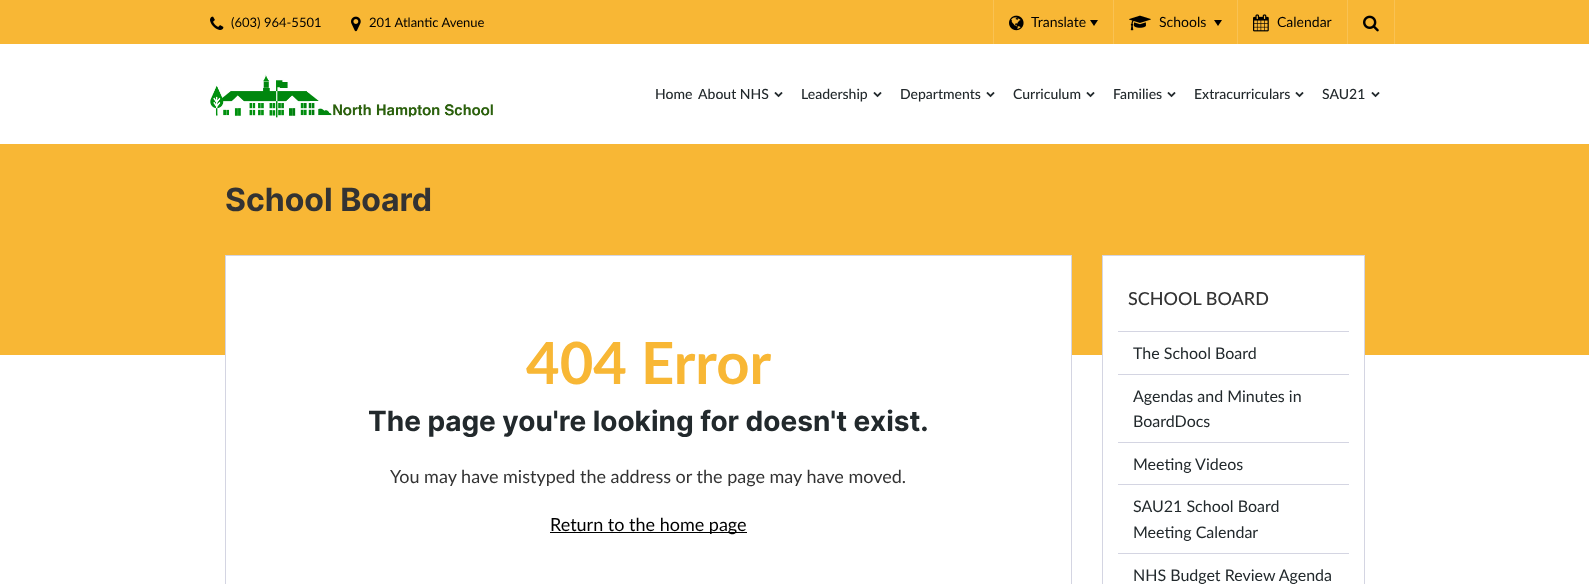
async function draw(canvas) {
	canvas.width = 1589;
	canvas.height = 584;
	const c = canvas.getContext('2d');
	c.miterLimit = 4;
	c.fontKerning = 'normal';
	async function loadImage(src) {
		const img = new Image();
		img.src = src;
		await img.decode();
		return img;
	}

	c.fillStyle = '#fff';
	c.fillRect(0, 0, 1589, 584);
	c.fillStyle = '#f8b735';
	c.fillRect(0, 0, 1589, 44);
	c.drawImage(await loadImage('img1.png'), 210, 16, 14, 14);
	c.font = '13px Lato';
	c.fillStyle = '#000';
	c.fillText('(603) 964-5501', 231, 27);
	c.drawImage(await loadImage('img2.png'), 351, 16, 10, 16);
	c.fillText('201 Atlantic Avenue', 369, 27);
	c.fillStyle = '#f9c253';
	c.fillRect(993, 0, 1, 44);
	c.drawImage(await loadImage('img3.png'), 1009, 15, 15, 16);
	c.font = '14px Lato';
	c.fillStyle = '#000';
	c.fillText('Translate', 1031, 27);
	c.beginPath();
	c.moveTo(1090, 20);
	c.lineTo(1098, 20);
	c.lineTo(1094, 26);
	c.closePath();
	c.fill();
	c.fillStyle = '#f9c253';
	c.fillRect(1113, 0, 1, 44);
	c.drawImage(await loadImage('img4.png'), 1129, 15, 22, 16);
	c.fillStyle = '#000';
	c.fillText('Schools', 1159, 27);
	c.beginPath();
	c.moveTo(1214, 20);
	c.lineTo(1222, 20);
	c.lineTo(1218, 26);
	c.closePath();
	c.fill();
	c.fillStyle = '#f9c253';
	c.fillRect(1237, 0, 1, 44);
	c.fillRect(1347, 0, 1, 44);
	c.drawImage(await loadImage('img5.png'), 1253, 14, 16, 18);
	c.fillStyle = '#000';
	c.fillText('Calendar', 1277, 27);
	c.fillStyle = '#f9c253';
	c.fillRect(1394, 0, 1, 44);
	c.drawImage(await loadImage('img6.png'), 1363, 15, 16, 17);
	c.drawImage(await loadImage('img7.png'), 210, 74, 283, 44);
	c.font = '500 14px Lato';
	c.fillStyle = '#22292c';
	c.fillText('Home', 655, 99);
	c.fillText('About NHS', 698, 99);
	c.drawImage(await loadImage('img8.png'), 774, 92, 9, 6);
	c.fillText('Leadership', 801, 99);
	c.drawImage(await loadImage('img8.png'), 873, 92, 9, 6);
	c.fillText('Departments', 900, 99);
	c.drawImage(await loadImage('img8.png'), 986, 92, 9, 6);
	c.fillText('Curriculum', 1013, 99);
	c.drawImage(await loadImage('img8.png'), 1086, 92, 9, 6);
	c.fillText('Families', 1113, 99);
	c.drawImage(await loadImage('img8.png'), 1167, 92, 9, 6);
	c.fillText('Extracurriculars', 1194, 99);
	c.drawImage(await loadImage('img8.png'), 1295, 92, 9, 6);
	c.fillText('SAU21', 1322, 99);
	c.drawImage(await loadImage('img8.png'), 1371, 92, 9, 6);
	c.fillStyle = '#f8b735';
	c.fillRect(0, 144, 1589, 211);
	c.font = 'bold 32px Inter';
	c.fillStyle = '#333';
	c.fillText('School Board', 225, 211);
	c.fillStyle = '#fff';
	c.fillRect(226, 256, 845, 99);
	c.strokeStyle = '#d4d5e2';
	c.strokeRect(225.5, 255.5, 846, 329);
	c.font = 'bold 58px Lato';
	c.fillStyle = '#f8b735';
	c.fillText('404 Error', 526, 384);
	c.font = 'bold 28px Inter';
	c.fillStyle = '#22292c';
	c.fillText('The page you\'re looking for doesn\'t exist.', 368, 431);
	c.font = '18px Lato';
	c.fillStyle = '#333';
	c.fillText('You may have mistyped the address or the page may have moved.', 390, 483);
	c.fillStyle = '#000';
	c.fillRect(550, 532, 197, 1);
	c.fillText('Return to the home page', 550, 531);
	c.fillStyle = '#fff';
	c.fillRect(1103, 256, 261, 99);
	c.strokeRect(1102.5, 255.5, 262, 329);
	c.font = '500 18px Lato';
	c.fillStyle = '#333';
	c.fillText('SCHOOL BOARD', 1128, 305);
	c.fillStyle = '#d4d5e2';
	c.fillRect(1118, 331, 231, 1);
	c.fillRect(1118, 374, 231, 1);
	c.font = '16px Lato';
	c.fillStyle = '#22292c';
	c.fillText('The School Board', 1133, 359);
	c.fillStyle = '#d4d5e2';
	c.fillRect(1118, 442, 231, 1);
	c.fillStyle = '#22292c';
	c.fillText('Agendas and Minutes in', 1133, 402);
	c.fillText('BoardDocs', 1133, 427);
	c.fillStyle = '#d4d5e2';
	c.fillRect(1118, 484, 231, 1);
	c.fillStyle = '#22292c';
	c.fillText('Meeting Videos', 1133, 470);
	c.fillStyle = '#d4d5e2';
	c.fillRect(1118, 553, 231, 1);
	c.fillStyle = '#22292c';
	for (const [text, x, y] of [
		['SAU21 School Board', 1133, 512],
		['Meeting Calendar', 1133, 538],
		['NHS Budget Review Agenda', 1133, 581],
	]) {
		c.fillText(text, x, y);
	}
}

draw(document.querySelector('canvas'));
